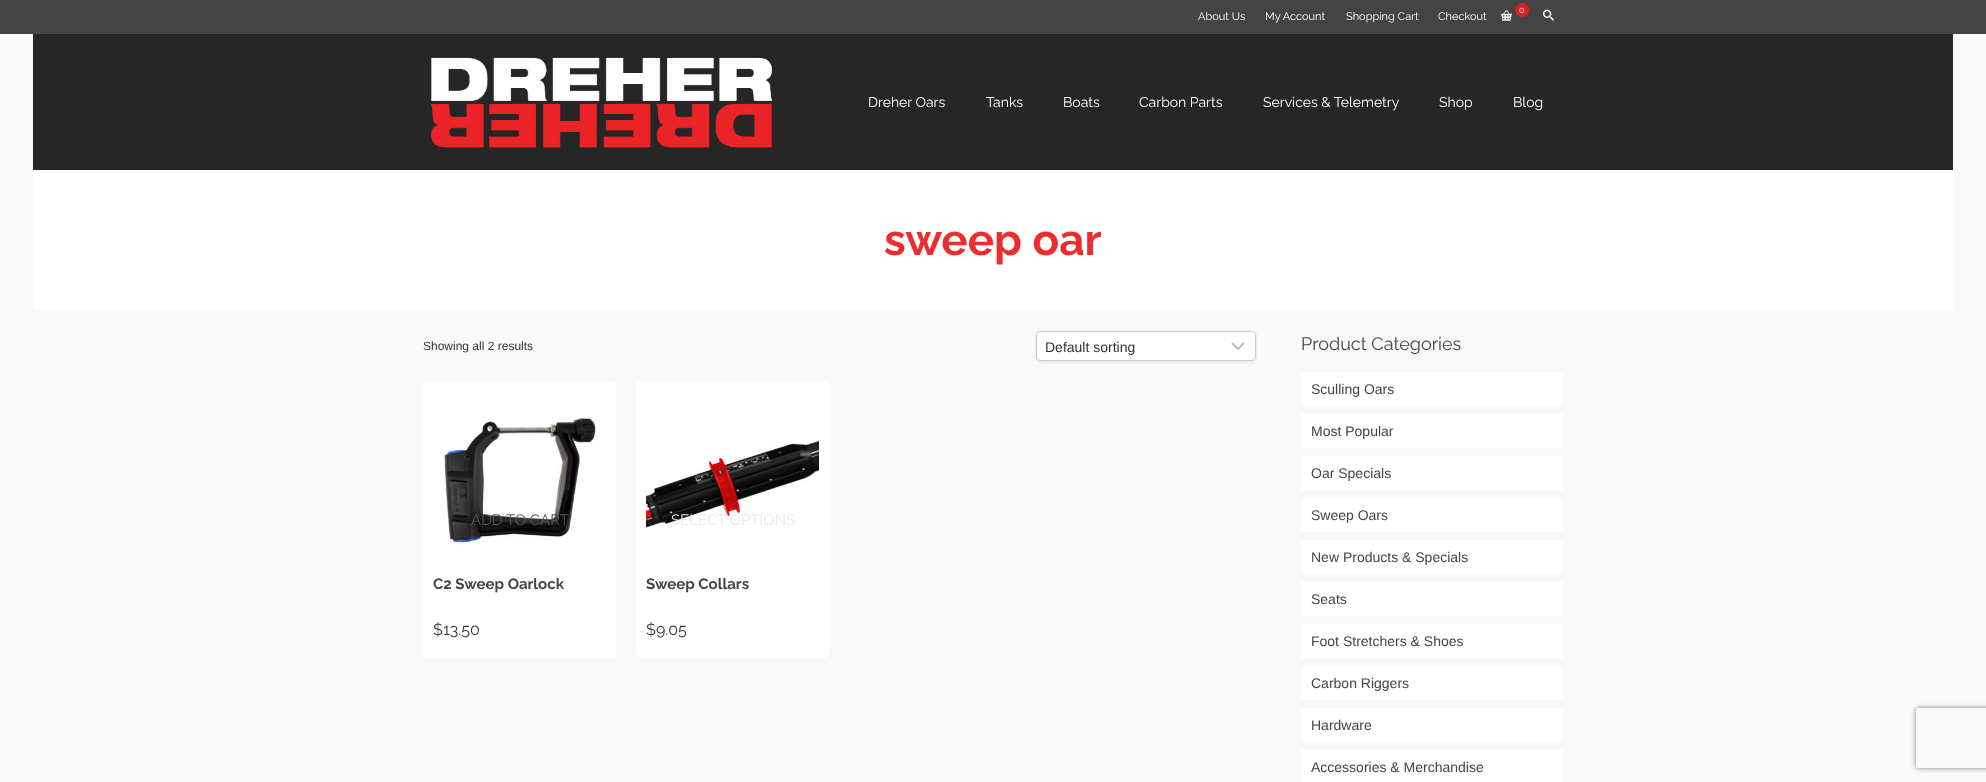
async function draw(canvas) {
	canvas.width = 1986;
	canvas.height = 782;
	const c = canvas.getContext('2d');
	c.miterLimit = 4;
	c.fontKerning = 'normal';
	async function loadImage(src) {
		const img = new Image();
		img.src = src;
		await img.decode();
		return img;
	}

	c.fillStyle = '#f9f9f9';
	c.fillRect(0, 0, 1986, 782);
	c.fillStyle = '#444';
	c.fillRect(0, 0, 1986, 34);
	c.font = '11px Raleway';
	c.fillStyle = '#fff';
	for (const [text, x, y] of [
		['About Us', 1198, 20],
		['My Account', 1265, 20],
		['Shopping Cart', 1346, 20],
		['Checkout', 1438, 20],
	]) {
		c.fillText(text, x, y);
	}
	c.drawImage(await loadImage('img1.png'), 1501, 10, 11, 11);
	c.fillStyle = '#dd1f1f';
	c.beginPath();
	c.arc(1522, 10, 7, 0, 2 * Math.PI);
	c.fill();
	c.font = '9px Raleway';
	c.fillStyle = '#fff';
	c.fillText('0', 1519, 13);
	c.drawImage(await loadImage('img2.png'), 1543, 9, 11, 12);
	c.drawImage(await loadImage('img4.png'), 33, 34, 1920, 275);
	c.drawImage(await loadImage('img3.png'), 430, 57, 342, 91);
	c.font = '14px Raleway';
	for (const [text, x, y] of [
		['Dreher Oars', 868, 107],
		['Tanks', 986, 107],
		['Boats', 1063, 107],
		['Carbon Parts', 1139, 107],
		['Services & Telemetry', 1263, 107],
		['Shop', 1439, 107],
		['Blog', 1513, 107],
	]) {
		c.fillText(text, x, y);
	}
	c.font = 'bold 44px Raleway';
	c.fillStyle = '#ed2d2d';
	c.fillText('sweep oar', 884, 255);
	c.font = '12px Liberation Sans';
	c.fillStyle = '#333';
	c.fillText('Showing all 2 results', 423, 350);
	c.fillStyle = '#0000001a';
	c.filter = 'blur(1.5px)';
	c.beginPath();
	c.roundRect(1036, 332, 220, 30, 4);
	c.fill();
	c.filter = 'none';
	c.fillStyle = '#fff';
	c.beginPath();
	c.roundRect(1036, 331, 220, 30, 4);
	c.fill();
	c.beginPath();
	c.moveTo(1232, 343);
	c.lineTo(1238, 349);
	c.lineTo(1244, 343);
	c.strokeStyle = '#bbb';
	c.lineWidth = 2;
	c.stroke();
	c.beginPath();
	c.roundRect(1036.5, 331.5, 219, 29, 3.5);
	c.strokeStyle = '#ccc';
	c.lineWidth = 1;
	c.stroke();
	c.font = '14px Liberation Sans';
	c.fillStyle = '#333';
	c.fillText('Default sorting', 1045, 352);
	c.fillStyle = '#fff';
	c.beginPath();
	c.roundRect(423, 381, 193, 277, 5);
	c.fill();
	c.drawImage(await loadImage('img5.png'), 442, 417, 155, 126);
	c.font = '15px Raleway';
	c.fillStyle = '#585658';
	c.fillText('ADD TO CART', 471, 525);
	c.font = 'bold 15px Raleway';
	c.fillStyle = '#444';
	c.fillText('C2 Sweep Oarlock', 433, 589);
	c.font = '16px Raleway';
	c.fillStyle = '#333';
	c.fillText('$13.50', 433, 635);
	c.fillStyle = '#fff';
	c.beginPath();
	c.roundRect(636, 381, 193, 277, 5);
	c.fill();
	c.drawImage(await loadImage('img6.png'), 646, 440, 173, 88);
	c.font = '15px Raleway';
	c.fillStyle = '#e9e9e9';
	c.fillText('SELECT OPTIONS', 671, 525);
	c.font = 'bold 15px Raleway';
	c.fillStyle = '#444';
	c.fillText('Sweep Collars', 646, 589);
	c.font = '16px Raleway';
	c.fillStyle = '#333';
	c.fillText('$9.05', 646, 635);
	c.font = '18px Raleway';
	c.fillStyle = '#444';
	c.fillText('Product Categories', 1301, 350);
	c.fillStyle = '#fff';
	c.fillRect(1301, 372, 262, 34);
	c.font = '14px Liberation Sans';
	c.fillStyle = '#444';
	c.fillText('Sculling Oars', 1311, 394);
	c.fillStyle = '#fff';
	c.fillRect(1301, 414, 262, 34);
	c.fillStyle = '#444';
	c.fillText('Most Popular', 1311, 436);
	c.fillStyle = '#fff';
	c.fillRect(1301, 456, 262, 34);
	c.fillStyle = '#444';
	c.fillText('Oar Specials', 1311, 478);
	c.fillStyle = '#fff';
	c.fillRect(1301, 498, 262, 34);
	c.fillStyle = '#444';
	c.fillText('Sweep Oars', 1311, 520);
	c.fillStyle = '#fff';
	c.fillRect(1301, 540, 262, 34);
	c.fillStyle = '#444';
	c.fillText('New Products & Specials', 1311, 562);
	c.fillStyle = '#fff';
	c.fillRect(1301, 582, 262, 34);
	c.fillStyle = '#444';
	c.fillText('Seats', 1311, 604);
	c.fillStyle = '#fff';
	c.fillRect(1301, 624, 262, 34);
	c.fillStyle = '#444';
	c.fillText('Foot Stretchers & Shoes', 1311, 646);
	c.fillStyle = '#fff';
	c.fillRect(1301, 666, 262, 34);
	c.fillStyle = '#444';
	c.fillText('Carbon Riggers', 1311, 688);
	c.fillStyle = '#fff';
	c.fillRect(1301, 708, 262, 34);
	c.fillStyle = '#444';
	c.fillText('Hardware', 1311, 730);
	c.fillStyle = '#fff';
	c.fillRect(1301, 750, 262, 32);
	c.fillStyle = '#444';
	c.fillText('Accessories & Merchandise', 1311, 772);
	c.save();
	c.beginPath();
	c.moveTo(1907, 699);
	c.lineTo(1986, 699);
	c.lineTo(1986, 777);
	c.lineTo(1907, 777);
	c.closePath();
	c.moveTo(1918, 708);
	c.lineTo(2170, 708);
	c.bezierCurveTo(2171, 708, 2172, 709, 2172, 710);
	c.lineTo(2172, 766);
	c.bezierCurveTo(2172, 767, 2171, 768, 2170, 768);
	c.lineTo(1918, 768);
	c.bezierCurveTo(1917, 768, 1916, 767, 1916, 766);
	c.lineTo(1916, 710);
	c.bezierCurveTo(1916, 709, 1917, 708, 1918, 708);
	c.closePath();
	c.clip('evenodd');
	c.fillStyle = '#808080';
	c.filter = 'blur(2.5px)';
	c.beginPath();
	c.roundRect(1916, 708, 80, 60, 2);
	c.fill();
	c.filter = 'none';
	c.restore();
}

draw(document.querySelector('canvas'));
